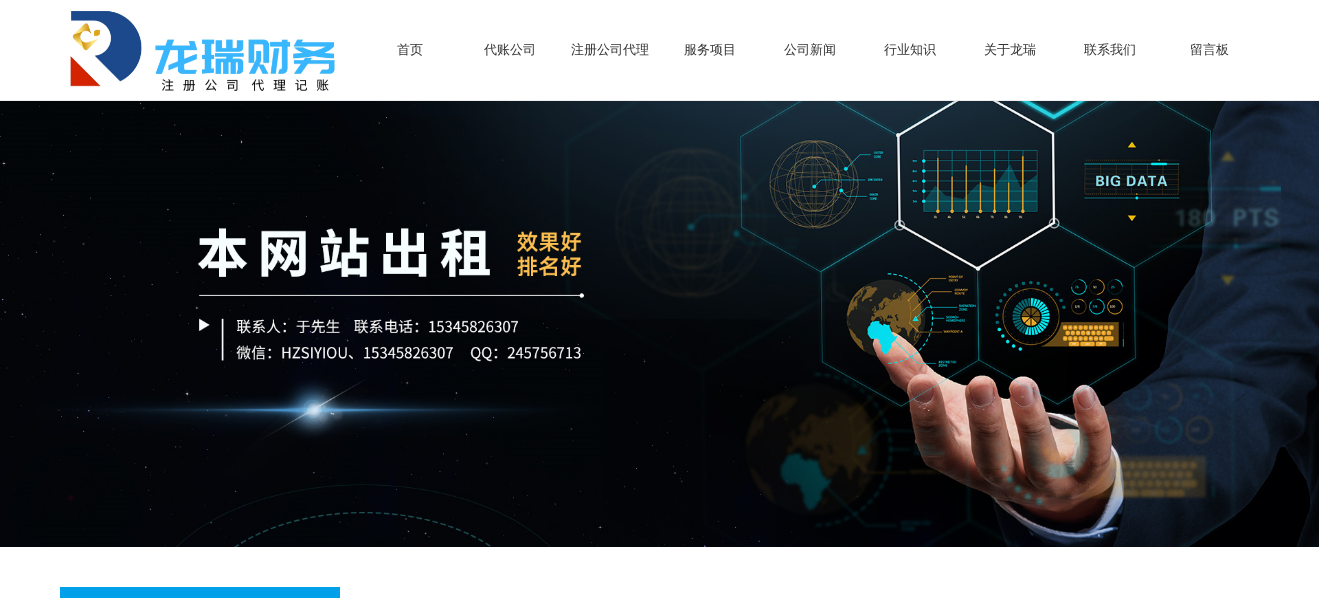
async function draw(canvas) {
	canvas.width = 1319;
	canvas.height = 598;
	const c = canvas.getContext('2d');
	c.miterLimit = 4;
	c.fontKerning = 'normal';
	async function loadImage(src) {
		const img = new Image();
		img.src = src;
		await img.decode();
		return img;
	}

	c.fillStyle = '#fff';
	c.fillRect(0, 0, 1319, 598);
	c.fillStyle = '#eee';
	c.fillRect(0, 100, 1319, 1);
	c.drawImage(await loadImage('img1.png'), 70, 11, 265, 81);
	c.font = '500 13px WenQuanYi Zen Hei';
	c.fillStyle = '#333';
	for (const [text, x, y] of [
		['首页', 397, 54],
		['代账公司', 484, 54],
		['注册公司代理', 571, 54],
		['服务项目', 684, 54],
		['公司新闻', 784, 54],
		['行业知识', 884, 54],
		['关于龙瑞', 984, 54],
		['联系我们', 1084, 54],
		['留言板', 1190, 54],
	]) {
		c.fillText(text, x, y);
	}
	c.drawImage(await loadImage('img2.png'), 0, 101, 1319, 446);
	c.fillStyle = '#009fe9';
	c.fillRect(60, 587, 280, 11);
}

draw(document.querySelector('canvas'));
